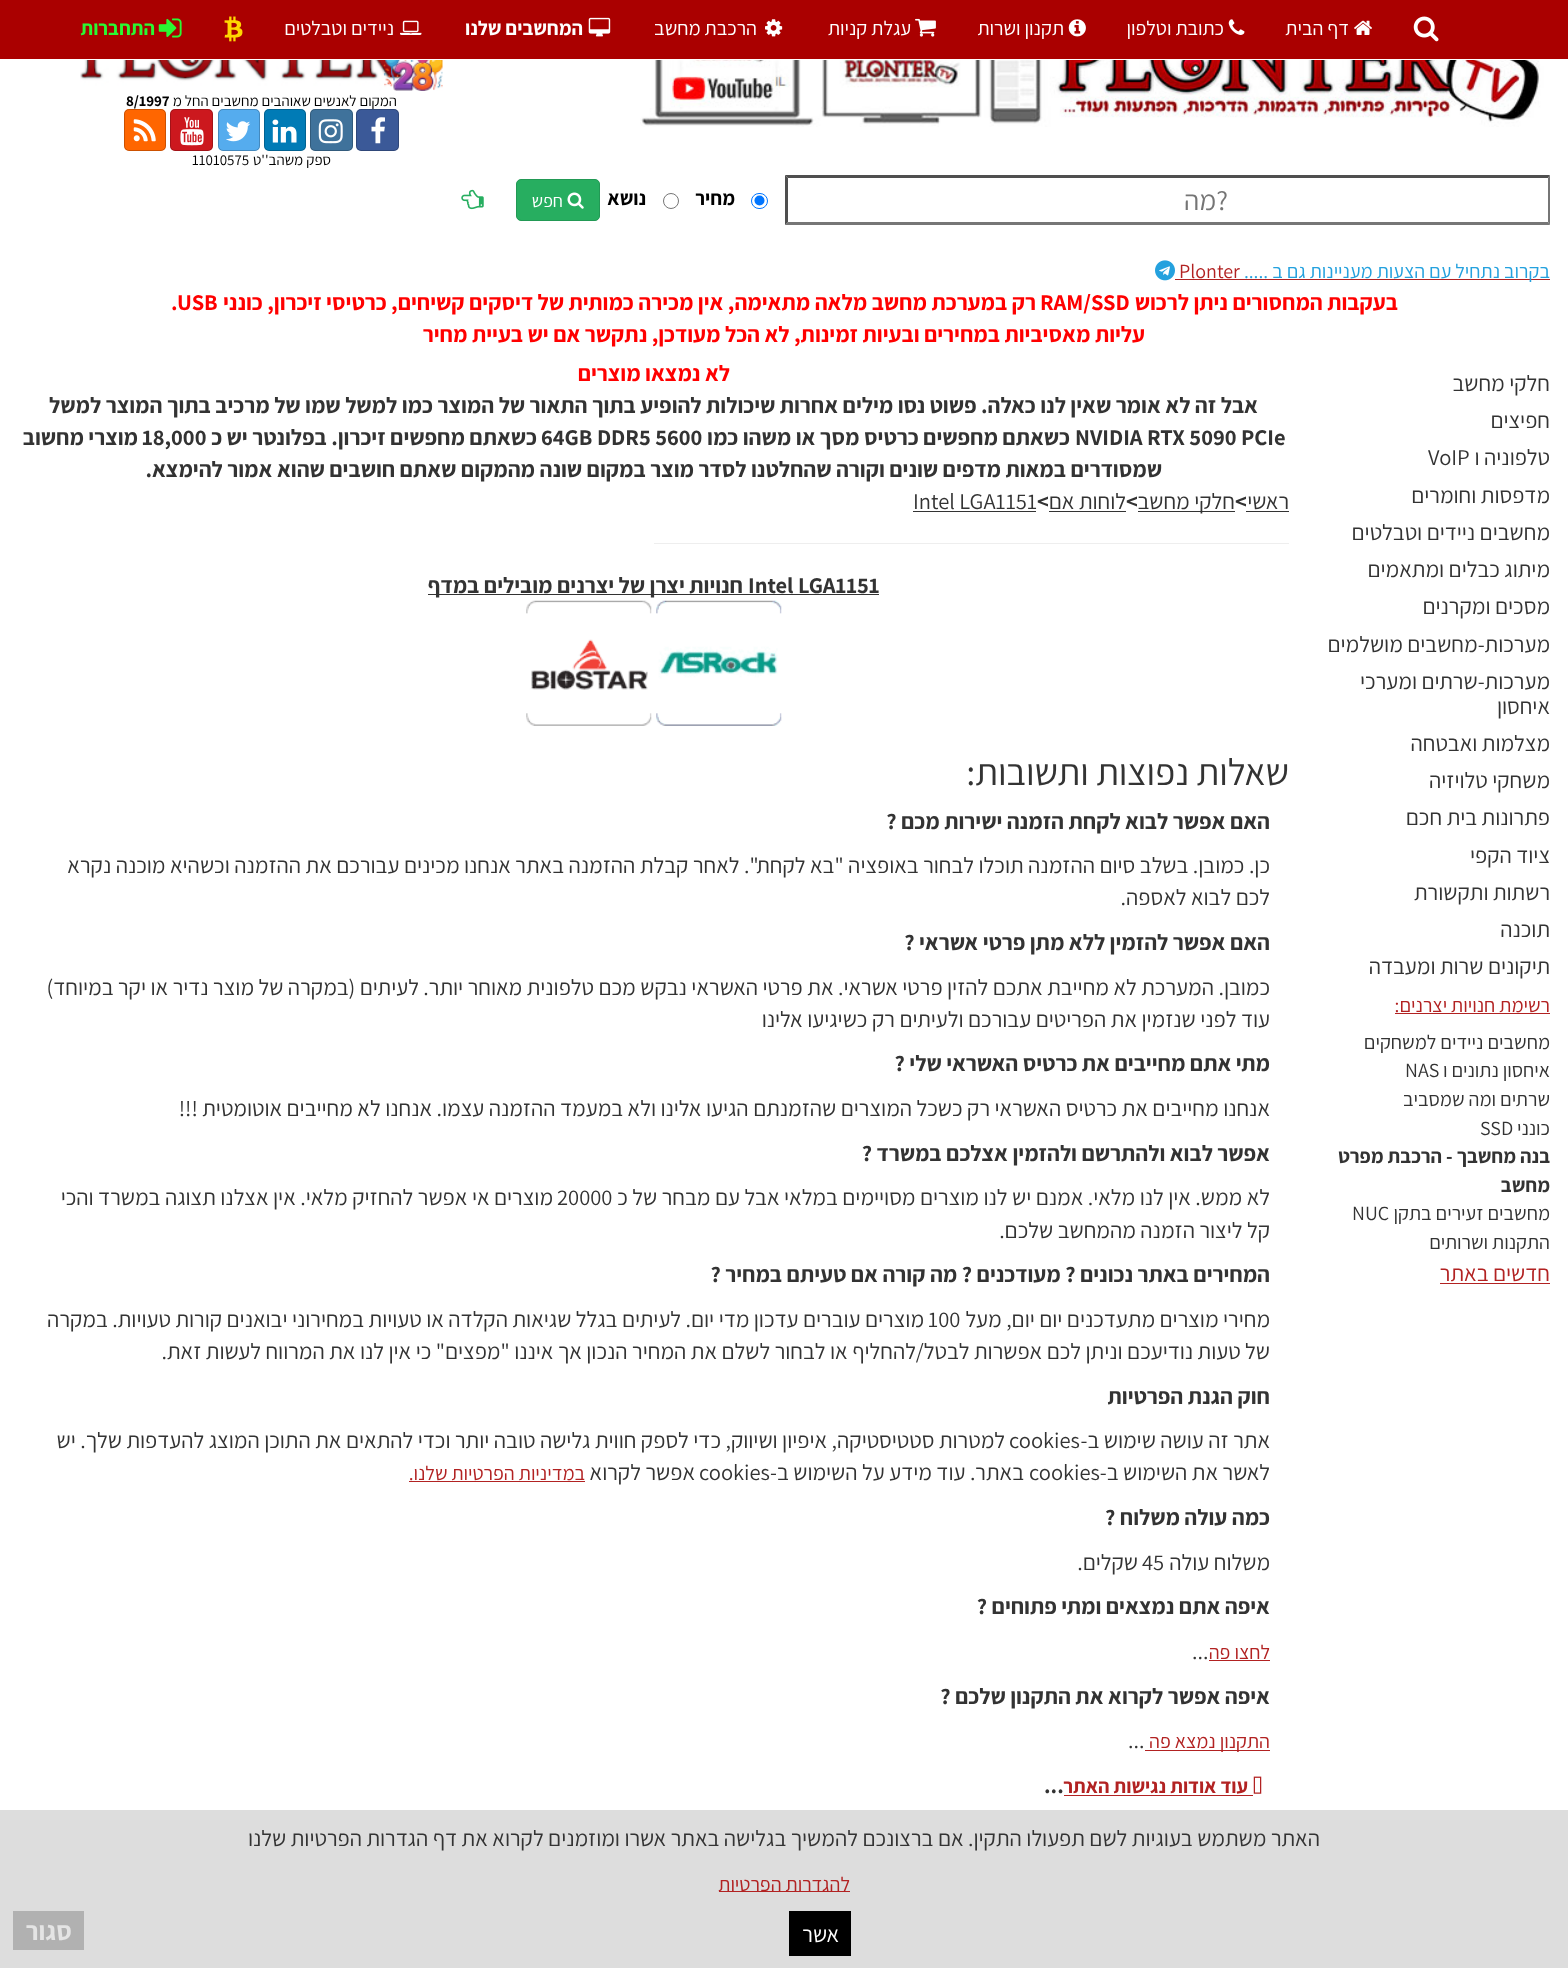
async function draw(canvas) {
	canvas.width = 1568;
	canvas.height = 1968;
	const c = canvas.getContext('2d');
	c.miterLimit = 4;
	c.fontKerning = 'normal';
	async function loadImage(src) {
		const img = new Image();
		img.src = src;
		await img.decode();
		return img;
	}

	c.fillStyle = '#fff';
	c.fillRect(0, 0, 1568, 1968);
	c.fillStyle = '#a00';
	c.fillRect(0, 0, 1568, 59);
	c.drawImage(await loadImage('img1.png'), 1413, 16, 26, 26);
	c.drawImage(await loadImage('img2.png'), 1354, 20, 18, 15);
	c.direction = 'rtl';
	c.font = '20px Assistant';
	c.fillStyle = '#fff';
	c.fillText('דף הבית', 1349, 35);
	c.drawImage(await loadImage('img3.png'), 1228, 19, 17, 16);
	c.fillText('כתובת וטלפון', 1224, 35);
	c.drawImage(await loadImage('img4.png'), 1068, 19, 18, 18);
	c.fillText('תקנון ושרות', 1064, 35);
	c.drawImage(await loadImage('img5.png'), 915, 18, 21, 19);
	c.fillText('עגלת קניות', 911, 35);
	c.drawImage(await loadImage('img6.png'), 765, 19, 18, 18);
	c.fillText('הרכבת מחשב', 757, 35);
	c.drawImage(await loadImage('img7.png'), 588, 17, 23, 20);
	c.font = 'bold 20px Assistant';
	c.fillText('המחשבים שלנו', 583, 35);
	c.drawImage(await loadImage('img8.png'), 400, 20, 22, 15);
	c.font = '20px Assistant';
	c.fillText('ניידים וטבלטים', 394, 35);
	c.drawImage(await loadImage('img9.png'), 224, 16, 19, 26);
	c.drawImage(await loadImage('img10.png'), 158, 18, 24, 20);
	c.font = 'bold 20px Assistant';
	c.fillStyle = '#2af833';
	c.fillText('התחברות', 155, 35);
	c.drawImage(await loadImage('img11.png'), 640, 60, 910, 67);
	c.drawImage(await loadImage('img12.png'), 80, 60, 363, 31);
	c.font = '15px Assistant';
	c.fillStyle = '#000';
	c.fillText('המקום לאנשים שאוהבים מחשבים החל מ', 397, 106);
	c.direction = 'ltr';
	c.font = 'bold 15px Assistant';
	c.fillText('8/1997', 126, 106);
	c.fillStyle = '#3b5998';
	c.beginPath();
	c.roundRect(356, 109, 43, 42, 5);
	c.fill();
	c.beginPath();
	c.roundRect(356.5, 109.5, 42, 41, 4.5);
	c.strokeStyle = '#00000033';
	c.stroke();
	c.drawImage(await loadImage('img13.png'), 371, 117, 14, 27);
	c.fillStyle = '#3f729b';
	c.beginPath();
	c.roundRect(310, 109, 43, 42, 5);
	c.fill();
	c.beginPath();
	c.roundRect(310.5, 109.5, 42, 41, 4.5);
	c.stroke();
	c.drawImage(await loadImage('img14.png'), 318, 119, 25, 25);
	c.fillStyle = '#007bb6';
	c.beginPath();
	c.roundRect(264, 109, 42, 42, 5);
	c.fill();
	c.beginPath();
	c.roundRect(264.5, 109.5, 41, 41, 4.5);
	c.stroke();
	c.drawImage(await loadImage('img15.png'), 272, 119, 25, 24);
	c.fillStyle = '#55acee';
	c.beginPath();
	c.roundRect(218, 109, 42, 42, 5);
	c.fill();
	c.beginPath();
	c.roundRect(218.5, 109.5, 41, 41, 4.5);
	c.stroke();
	c.drawImage(await loadImage('img16.png'), 226, 121, 25, 21);
	c.fillStyle = '#cc181e';
	c.beginPath();
	c.roundRect(170, 109, 43, 42, 5);
	c.fill();
	c.beginPath();
	c.roundRect(170.5, 109.5, 42, 41, 4.5);
	c.stroke();
	c.drawImage(await loadImage('img17.png'), 180, 117, 24, 29);
	c.fillStyle = '#f60';
	c.beginPath();
	c.roundRect(124, 109, 42, 42, 5);
	c.fill();
	c.beginPath();
	c.roundRect(124.5, 109.5, 41, 41, 4.5);
	c.stroke();
	c.drawImage(await loadImage('img18.png'), 133, 119, 23, 23);
	c.direction = 'rtl';
	c.font = '15px Assistant';
	c.fillStyle = '#000';
	c.fillText('ספק משהב\'\'ט', 331, 165);
	c.direction = 'ltr';
	c.fillText('11010575', 192, 165);
	c.fillStyle = '#4f4f4f';
	c.beginPath();
	c.moveTo(785, 175);
	c.lineTo(1550, 175);
	c.lineTo(1548, 178);
	c.lineTo(788, 178);
	c.closePath();
	c.fill();
	c.fillStyle = '#767676';
	c.beginPath();
	c.moveTo(1550, 175);
	c.lineTo(1550, 225);
	c.lineTo(1548, 222);
	c.lineTo(1548, 178);
	c.closePath();
	c.fill();
	c.beginPath();
	c.moveTo(1550, 225);
	c.lineTo(785, 225);
	c.lineTo(788, 222);
	c.lineTo(1548, 222);
	c.closePath();
	c.fill();
	c.fillStyle = '#4f4f4f';
	c.beginPath();
	c.moveTo(785, 225);
	c.lineTo(785, 175);
	c.lineTo(788, 178);
	c.lineTo(788, 222);
	c.closePath();
	c.fill();
	c.direction = 'rtl';
	c.font = '28px Assistant';
	c.fillStyle = '#757575';
	c.fillText('?מה', 1228, 210);
	c.beginPath();
	c.roundRect(751.5, 193.5, 16, 15, 7.5);
	c.strokeStyle = '#0075ff';
	c.stroke();
	c.fillStyle = '#0075ff';
	c.beginPath();
	c.arc(759.5, 200.5, 5, 0, 2 * Math.PI);
	c.fill();
	c.font = 'bold 20px Assistant';
	c.fillStyle = '#000';
	c.fillText('מחיר', 735, 205);
	c.beginPath();
	c.arc(671, 201, 7.5, 0, 2 * Math.PI);
	c.strokeStyle = '#767676';
	c.stroke();
	c.fillText('נושא', 646, 205);
	c.fillStyle = '#27ae60';
	c.beginPath();
	c.roundRect(516.5, 179.5, 83, 41, 4.5);
	c.fill();
	c.strokeStyle = '#295';
	c.stroke();
	c.drawImage(await loadImage('img19.png'), 567, 192, 17, 17);
	c.font = '18px Assistant';
	c.fillStyle = '#fff';
	c.fillText('חפש', 563, 207);
	c.drawImage(await loadImage('img20.png'), 461, 189, 23, 21);
	c.fillStyle = '#b22222';
	c.fillRect(1244, 279, 306, 1);
	c.font = '20px Assistant';
	c.fillStyle = '#24a1de';
	c.fillText('בקרוב נתחיל עם הצעות מעניינות גם ב .....', 1550, 278);
	c.direction = 'ltr';
	c.fillStyle = '#b22222';
	c.fillText('Plonter', 1179, 278);
	c.fillRect(1175, 279, 69, 1);
	c.drawImage(await loadImage('img21.png'), 1155, 260, 20, 21);
	c.direction = 'rtl';
	c.font = 'bold 22.5px Assistant';
	c.fillStyle = '#f00';
	c.fillText('בעקבות המחסורים ניתן לרכוש', 1398, 310);
	c.direction = 'ltr';
	c.fillText('RAM/SSD', 1040, 310);
	c.direction = 'rtl';
	c.fillText('רק במערכת מחשב מלאה מתאימה, אין מכירה כמותית של דיסקים קשיחים, כרטיסי זיכרון, כונני', 1036, 310);
	c.direction = 'ltr';
	c.fillText('.USB', 171, 310);
	c.direction = 'rtl';
	c.fillText('עליות מאסיביות במחירים ובעיות זמינות, לא הכל מעודכן, נתקשר אם יש בעיית מחיר', 1145, 342);
	c.font = '22.5px Assistant';
	c.fillStyle = '#333';
	for (const [text, x, y] of [
		['חלקי מחשב', 1550, 391],
		['חפיצים', 1550, 428],
		['טלפוניה ו', 1550, 465],
	]) {
		c.fillText(text, x, y);
	}
	c.direction = 'ltr';
	c.fillText('VoIP', 1428, 465);
	c.direction = 'rtl';
	for (const [text, x, y] of [
		['מדפסות וחומרים', 1550, 503],
		['מחשבים ניידים וטבלטים', 1550, 540],
		['מיתוג כבלים ומתאמים', 1550, 577],
		['מסכים ומקרנים', 1550, 614],
		['מערכות-מחשבים מושלמים', 1550, 652],
		['מערכות-שרתים ומערכי', 1550, 689],
		['איחסון', 1550, 714],
		['מצלמות ואבטחה', 1550, 751],
		['משחקי טלויזיה', 1550, 788],
		['פתרונות בית חכם', 1550, 825],
		['ציוד הקפי', 1550, 863],
		['רשתות ותקשורת', 1550, 900],
		['תוכנה', 1550, 937],
		['תיקונים שרות ומעבדה', 1550, 974],
	]) {
		c.fillText(text, x, y);
	}
	c.font = '20px Assistant';
	c.fillStyle = '#b22222';
	c.fillText('רשימת חנויות יצרנים:', 1550, 1012);
	c.fillRect(1395, 1013, 155, 1);
	c.fillStyle = '#333';
	c.fillText('מחשבים ניידים למשחקים', 1550, 1049);
	c.fillText('איחסון נתונים ו', 1550, 1077);
	c.direction = 'ltr';
	c.fillText('NAS', 1405, 1077);
	c.direction = 'rtl';
	c.fillText('שרתים ומה שמסביב', 1550, 1106);
	c.fillText('כונני', 1550, 1135);
	c.direction = 'ltr';
	c.fillText('SSD', 1480, 1135);
	c.direction = 'rtl';
	c.font = 'bold 20px Assistant';
	c.fillText('בנה מחשבך - הרכבת מפרט', 1550, 1163);
	c.fillText('מחשב', 1550, 1192);
	c.font = '20px Assistant';
	c.fillText('מחשבים זעירים בתקן', 1550, 1220);
	c.direction = 'ltr';
	c.fillText('NUC', 1352, 1220);
	c.direction = 'rtl';
	c.fillText('התקנות ושרותים', 1550, 1249);
	c.font = '22.5px Assistant';
	c.fillStyle = '#b22222';
	c.fillText('חדשים באתר', 1550, 1281);
	c.fillRect(1440, 1283, 110, 1);
	c.font = 'bold 22.5px Assistant';
	c.fillStyle = '#f00';
	c.fillText('לא נמצאו מוצרים', 730, 381);
	c.fillStyle = '#333';
	c.fillText('אבל זה לא אומר שאין לנו כאלה. פשוט נסו מילים אחרות שיכולות להופיע בתוך התאור של המוצר כמו למשל שמו של מרכיב בתוך המוצר למשל', 1258, 413);
	c.direction = 'ltr';
	c.fillText('NVIDIA RTX 5090 PCIe', 1075, 445);
	c.direction = 'rtl';
	c.fillText('כשאתם מחפשים כרטיס מסך או משהו כמו', 1070, 445);
	c.direction = 'ltr';
	c.fillText('64GB DDR5 5600', 541, 445);
	c.direction = 'rtl';
	c.fillText('כשאתם מחפשים זיכרון. בפלונטר יש כ', 537, 445);
	c.direction = 'ltr';
	c.fillText('18,000', 142, 445);
	c.direction = 'rtl';
	c.fillText('מוצרי מחשוב', 138, 445);
	c.fillText('שמסודרים במאות מדפים שונים וקורה שהחלטנו לסדר מוצר במקום שונה מהמקום שאתם חושבים שהוא אמור להימצא.', 1162, 477);
	c.font = '22.5px Assistant';
	c.fillText('ראשי', 1289, 509);
	c.fillRect(1246, 511, 43, 1);
	c.direction = 'ltr';
	c.font = 'bold 22.5px Assistant';
	c.fillText('<', 1235, 509);
	c.fillRect(1138, 511, 97, 1);
	c.direction = 'rtl';
	c.font = '22.5px Assistant';
	c.fillText('חלקי מחשב', 1235, 509);
	c.direction = 'ltr';
	c.font = 'bold 22.5px Assistant';
	c.fillText('<', 1126, 509);
	c.direction = 'rtl';
	c.font = '22.5px Assistant';
	c.fillText('לוחות אם', 1126, 509);
	c.fillRect(1049, 511, 77, 1);
	c.direction = 'ltr';
	c.font = 'bold 22.5px Assistant';
	c.fillText('<', 1037, 509);
	c.font = '22.5px Assistant';
	c.fillText('Intel LGA1151', 913, 509);
	c.fillRect(913, 511, 123, 1);
	c.fillStyle = '#eee';
	c.fillRect(654, 543, 635, 1);
	c.font = 'bold 22.5px Assistant';
	c.fillStyle = '#333';
	c.fillText('Intel LGA1151', 748, 593);
	c.fillRect(428, 594, 451, 1);
	c.direction = 'rtl';
	c.fillText('חנויות יצרן של יצרנים מובילים במדף', 743, 593);
	c.drawImage(await loadImage('img22.png'), 656, 600, 126, 126);
	c.drawImage(await loadImage('img23.png'), 526, 600, 126, 126);
	c.font = '37.5px Assistant';
	c.fillText('שאלות נפוצות ותשובות:', 1289, 785);
	c.font = 'bold 22.5px Assistant';
	c.fillText('האם אפשר לבוא לקחת הזמנה ישירות מכם ?', 1270, 829);
	c.font = '22.5px Assistant';
	c.fillText('כן. כמובן. בשלב סיום ההזמנה תוכלו לבחור באופציה "בא לקחת". לאחר קבלת ההזמנה באתר אנחנו מכינים עבורכם את ההזמנה וכשהיא מוכנה נקרא', 1270, 873);
	c.fillText('לכם לבוא לאספה.', 1270, 905);
	c.font = 'bold 22.5px Assistant';
	c.fillText('האם אפשר להזמין ללא מתן פרטי אשראי ?', 1270, 950);
	c.font = '22.5px Assistant';
	c.fillText('כמובן. המערכת לא מחייבת אתכם להזין פרטי אשראי. את פרטי האשראי נבקש מכם טלפונית מאוחר יותר. לעיתים (במקרה של מוצר נדיר או יקר במיוחד)', 1270, 995);
	c.fillText('עוד לפני שנזמין את הפריטים עבורכם ולעיתים רק כשיגיעו אלינו', 1270, 1027);
	c.font = 'bold 22.5px Assistant';
	c.fillText('מתי אתם מחייבים את כרטיס האשראי שלי ?', 1270, 1071);
	c.font = '22.5px Assistant';
	c.fillText('אנחנו מחייבים את כרטיס האשראי רק כשכל המוצרים שהזמנתם הגיעו אלינו ולא במעמד ההזמנה עצמו. אנחנו לא מחייבים אוטומטית !!!', 1270, 1116);
	c.font = 'bold 22.5px Assistant';
	c.fillText('אפשר לבוא ולהתרשם ולהזמין אצלכם במשרד ?', 1270, 1161);
	c.font = '22.5px Assistant';
	c.fillText('לא ממש. אין לנו מלאי. אמנם יש לנו מוצרים מסויימים במלאי אבל עם מבחר של כ', 1270, 1205);
	c.direction = 'ltr';
	c.fillText('20000', 557, 1205);
	c.direction = 'rtl';
	c.fillText('מוצרים אי אפשר להחזיק מלאי. אין אצלנו תצוגה במשרד והכי', 553, 1205);
	c.fillText('קל ליצור הזמנה מהמחשב שלכם.', 1270, 1238);
	c.font = 'bold 22.5px Assistant';
	c.fillText('המחירים באתר נכונים ? מעודכנים ? מה קורה אם טעיתם במחיר ?', 1270, 1282);
	c.font = '22.5px Assistant';
	c.fillText('מחירי מוצרים מתעדכנים יום יום, מעל', 1270, 1327);
	c.direction = 'ltr';
	c.fillText('100', 928, 1327);
	c.direction = 'rtl';
	c.fillText('מוצרים עוברים עדכון מדי יום. לעיתים בגלל שגיאות הקלדה או טעויות במחירוני יבואנים קורות טעויות. במקרה', 924, 1327);
	c.fillText('של טעות נודיעכם וניתן לכם אפשרות לבטל/להחליף או לבחור לשלם את המחיר הנכון אך איננו "מפצים" כי אין לנו את המרווח לעשות זאת.', 1270, 1359);
	c.font = 'bold 22.5px Assistant';
	c.fillText('חוק הגנת הפרטיות', 1270, 1404);
	c.font = '22.5px Assistant';
	c.fillText('אתר זה עושה שימוש ב-', 1270, 1448);
	c.direction = 'ltr';
	c.fillText('cookies', 1009, 1448);
	c.direction = 'rtl';
	c.fillText('למטרות סטטיסטיקה, איפיון ושיווק, כדי לספק חווית גלישה טובה יותר וכדי להתאים את התוכן המוצג להעדפות שלך. יש', 1005, 1448);
	c.fillText('לאשר את השימוש ב-', 1270, 1480);
	c.direction = 'ltr';
	c.fillText('cookies', 1029, 1480);
	c.direction = 'rtl';
	c.fillText('באתר. עוד מידע על השימוש ב-', 1024, 1480);
	c.direction = 'ltr';
	c.fillText('cookies', 699, 1480);
	c.direction = 'rtl';
	c.fillText('אפשר לקרוא', 695, 1480);
	c.font = '20px Assistant';
	c.fillStyle = '#b22222';
	c.fillText('במדיניות הפרטיות שלנו.', 585, 1480);
	c.fillRect(409, 1481, 176, 1);
	c.font = 'bold 22.5px Assistant';
	c.fillStyle = '#333';
	c.fillText('כמה עולה משלוח ?', 1270, 1525);
	c.font = '22.5px Assistant';
	c.fillText('משלוח עולה', 1270, 1570);
	c.direction = 'ltr';
	c.fillText('45', 1142, 1570);
	c.direction = 'rtl';
	c.fillText('שקלים.', 1138, 1570);
	c.font = 'bold 22.5px Assistant';
	c.fillText('איפה אתם נמצאים ומתי פתוחים ?', 1270, 1614);
	c.font = '20px Assistant';
	c.fillStyle = '#b22222';
	c.fillText('לחצו פה', 1270, 1659);
	c.fillRect(1209, 1660, 61, 1);
	c.direction = 'ltr';
	c.font = '22.5px Assistant';
	c.fillStyle = '#333';
	c.fillText('...', 1192, 1659);
	c.direction = 'rtl';
	c.font = 'bold 22.5px Assistant';
	c.fillText('איפה אפשר לקרוא את התקנון שלכם ?', 1270, 1704);
	c.fillStyle = '#b22222';
	c.fillRect(1145, 1750, 125, 1);
	c.font = '20px Assistant';
	c.fillText('התקנון נמצא פה', 1270, 1748);
	c.direction = 'ltr';
	c.font = '22.5px Assistant';
	c.fillStyle = '#333';
	c.fillText('...', 1128, 1748);
	c.drawImage(await loadImage('img24.png'), 1253, 1776, 9, 18);
	c.direction = 'rtl';
	c.font = 'bold 20px Assistant';
	c.fillStyle = '#b22222';
	c.fillText('עוד אודות נגישות האתר', 1248, 1793);
	c.fillRect(1064, 1795, 189, 1);
	c.direction = 'ltr';
	c.font = 'bold 22.5px Assistant';
	c.fillStyle = '#333';
	c.fillText('...', 1044, 1793);
	c.fillStyle = '#ddd';
	c.fillRect(0, 1810, 1568, 158);
	c.direction = 'rtl';
	c.font = '22.5px Assistant';
	c.fillStyle = '#333';
	c.fillText('האתר משתמש בעוגיות לשם תפעולו התקין. אם ברצונכם להמשיך בגלישה באתר אשרו ומוזמנים לקרוא את דף הגדרות הפרטיות שלנו', 1320, 1846);
	c.fillStyle = '#b22222';
	c.fillRect(719, 1891, 131, 1);
	c.font = '20px Assistant';
	c.fillText('להגדרות הפרטיות', 850, 1891);
	c.fillStyle = '#000';
	c.fillRect(789, 1911, 62, 45);
	c.font = '22.5px Assistant';
	c.fillStyle = '#fff';
	c.fillText('אשר', 839, 1942);
	c.fillStyle = '#b1b1b1';
	c.fillRect(13, 1911, 71, 39);
	c.font = 'bold 26px Assistant';
	c.fillStyle = '#e4e4e4';
	c.fillText('סגור', 72, 1940);
}

draw(document.querySelector('canvas'));
